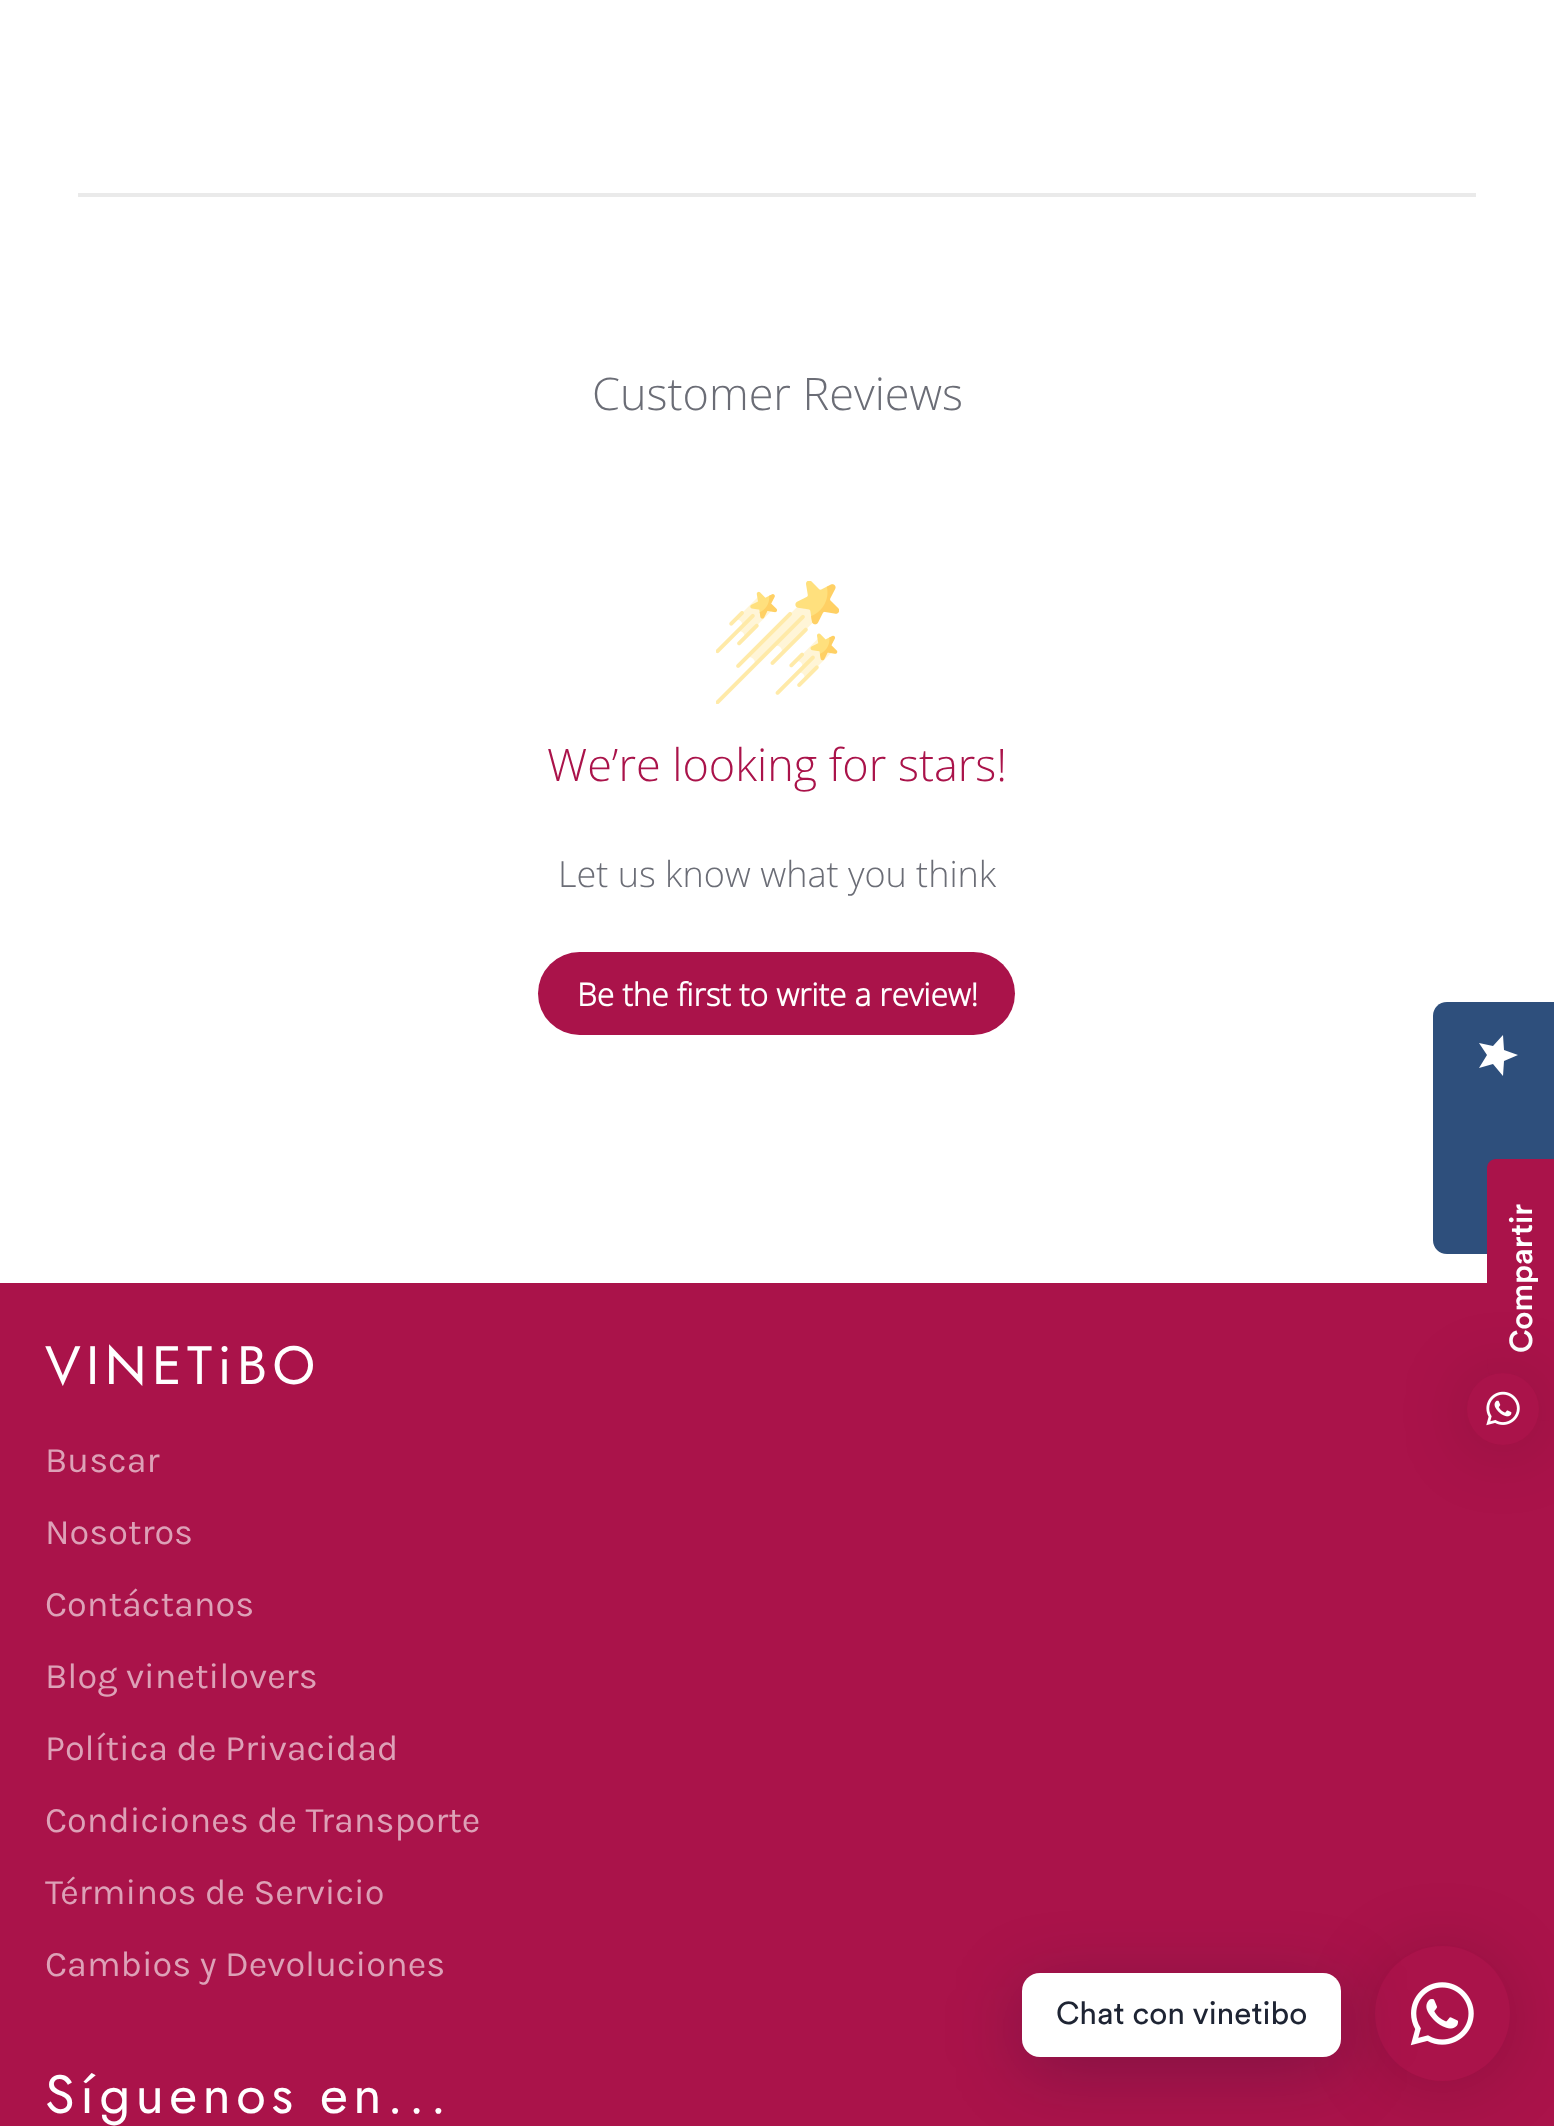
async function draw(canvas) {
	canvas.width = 1554;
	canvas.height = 2126;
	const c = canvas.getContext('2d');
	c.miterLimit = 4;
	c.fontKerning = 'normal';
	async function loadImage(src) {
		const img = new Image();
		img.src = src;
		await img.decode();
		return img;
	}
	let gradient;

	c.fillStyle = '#fff';
	c.fillRect(0, 0, 1554, 2126);
	c.fillStyle = '#eaeaea';
	c.fillRect(78, 193, 1398, 4);
	c.font = '300 45px Open Sans';
	c.fillStyle = '#6b6d76';
	c.fillText('Customer Reviews', 592, 410);
	c.drawImage(await loadImage('img1.png'), 716, 581, 123, 123);
	c.fillStyle = '#aa134a';
	c.fillText('We’re looking for stars!', 547, 781);
	c.font = '300 36px Open Sans';
	c.fillStyle = '#6b6d76';
	c.fillText('Let us know what you think', 558, 887);
	c.fillStyle = '#aa134a';
	c.beginPath();
	c.roundRect(538, 952, 477, 83, 41.5);
	c.fill();
	c.font = 'bold 31.5px Open Sans';
	c.fillStyle = '#fff';
	c.fillText('Be the first to write a review!', 577, 1006);
	c.fillStyle = '#aa134a';
	c.fillRect(0, 1283, 1554, 843);
	c.letterSpacing = '5.4px';
	c.font = '54px Jost';
	c.fillStyle = '#fff';
	c.fillText('VINETiBO', 45, 1384);
	c.letterSpacing = '0px';
	c.font = '36px Karla';
	c.fillStyle = '#dda1b7';
	for (const [text, x, y] of [
		['Buscar', 45, 1472],
		['Nosotros', 45, 1544],
		['Contáctanos', 45, 1616],
		['Blog vinetilovers', 45, 1688],
		['Política de Privacidad', 45, 1760],
		['Condiciones de Transporte', 45, 1832],
		['Términos de Servicio', 45, 1904],
		['Cambios y Devoluciones', 45, 1976],
	]) {
		c.fillText(text, x, y);
	}
	c.letterSpacing = '5.4px';
	c.font = '54px Jost';
	c.fillStyle = '#fff';
	c.fillText('Síguenos en...', 45, 2113);
	c.fillStyle = '#2e4f7c';
	c.beginPath();
	c.moveTo(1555, 1002);
	c.lineTo(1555, 1254);
	c.lineTo(1447, 1254);
	c.bezierCurveTo(1439, 1254, 1433, 1248, 1433, 1240);
	c.lineTo(1433, 1016);
	c.bezierCurveTo(1433, 1008, 1439, 1002, 1447, 1002);
	c.closePath();
	c.fill();
	gradient = c.createLinearGradient(1518, 1035, 1518, 1076);
	gradient.addColorStop(1, '#fff');
	gradient.addColorStop(1, '#eaeaea');
	c.fillStyle = gradient;
	c.beginPath();
	c.moveTo(1487, 1055);
	c.lineTo(1479, 1068);
	c.lineTo(1493, 1064);
	c.lineTo(1503, 1076);
	c.lineTo(1504, 1061);
	c.lineTo(1518, 1055);
	c.lineTo(1504, 1050);
	c.lineTo(1503, 1035);
	c.lineTo(1493, 1046);
	c.lineTo(1479, 1043);
	c.closePath();
	c.fill();
	c.fillStyle = '#aa134a';
	c.beginPath();
	c.moveTo(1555, 1159);
	c.lineTo(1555, 1421);
	c.lineTo(1550, 1421);
	c.bezierCurveTo(1515, 1421, 1487, 1393, 1487, 1358);
	c.lineTo(1487, 1168);
	c.bezierCurveTo(1487, 1163, 1491, 1159, 1496, 1159);
	c.closePath();
	c.fill();
	c.letterSpacing = '0px';
	c.font = '500 31.5px Circular';
	c.fillStyle = '#fff';
	c.save();
	c.translate(1532, 1353);
	c.rotate(-90 * Math.PI / 180);
	c.fillText('Compartir', 0, 0);
	c.restore();
	c.fillStyle = '#00000029';
	c.filter = 'blur(36px)';
	c.beginPath();
	c.roundRect(1467, 1377, 72, 72, 36);
	c.fill();
	c.filter = 'none';
	c.fillStyle = '#aa134a';
	c.beginPath();
	c.arc(1503, 1409, 36, 0, 2 * Math.PI);
	c.fill();
	c.drawImage(await loadImage('img2.png'), 1486, 1391, 34, 35);
	c.fillStyle = '#00000029';
	c.filter = 'blur(36px)';
	c.beginPath();
	c.roundRect(1375, 1951, 135, 135, 67.5);
	c.fill();
	c.filter = 'none';
	c.fillStyle = '#aa134a';
	c.beginPath();
	c.arc(1442.5, 2013.5, 67.5, 0, 2 * Math.PI);
	c.fill();
	c.fillStyle = '#00122e3d';
	c.filter = 'blur(36px)';
	c.beginPath();
	c.roundRect(1022, 1987, 319, 83, 18);
	c.fill();
	c.filter = 'none';
	c.fillStyle = '#fff';
	c.beginPath();
	c.roundRect(1022, 1973, 319, 84, 18);
	c.fill();
	c.font = '31.5px Circular';
	c.fillStyle = '#1e2433';
	c.fillText('Chat con vinetibo', 1056, 2024);
	c.drawImage(await loadImage('img3.png'), 1410, 1982, 64, 64);
}

draw(document.querySelector('canvas'));
